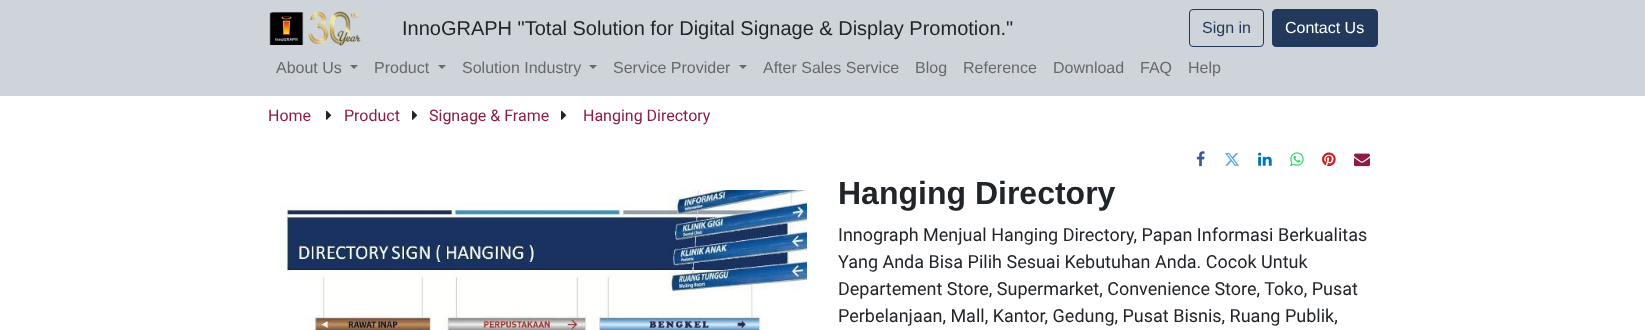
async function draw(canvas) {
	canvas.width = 1645;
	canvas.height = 330;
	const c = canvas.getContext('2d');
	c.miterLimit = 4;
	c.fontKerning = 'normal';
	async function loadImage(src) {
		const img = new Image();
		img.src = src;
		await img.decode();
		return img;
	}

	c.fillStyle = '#fff';
	c.fillRect(0, 0, 1645, 330);
	c.fillStyle = '#ced4da';
	c.fillRect(0, 0, 1645, 96);
	c.drawImage(await loadImage('img1.png'), 269, 11, 92, 35);
	c.font = '20px Liberation Sans';
	c.fillStyle = '#212529';
	c.fillText('InnoGRAPH "Total Solution for Digital Signage & Display Promotion."', 402, 35);
	c.beginPath();
	c.roundRect(1189.5, 9.5, 74, 37, 3.5);
	c.strokeStyle = '#23395b';
	c.stroke();
	c.font = '16px Liberation Sans';
	c.fillStyle = '#23395b';
	c.fillText('Sign in', 1202, 33);
	c.beginPath();
	c.roundRect(1272.5, 9.5, 105, 37, 3.5);
	c.fill();
	c.stroke();
	c.fillStyle = '#fff';
	c.fillText('Contact Us', 1285, 33);
	c.fillStyle = '#676a6d';
	c.fillText('About Us', 276, 73);
	c.beginPath();
	c.moveTo(350, 65);
	c.lineTo(358, 65);
	c.lineTo(354, 69);
	c.closePath();
	c.fill();
	c.fillText('Product', 374, 73);
	c.beginPath();
	c.moveTo(438, 65);
	c.lineTo(446, 65);
	c.lineTo(442, 69);
	c.closePath();
	c.fill();
	c.fillText('Solution Industry', 462, 73);
	c.beginPath();
	c.moveTo(589, 65);
	c.lineTo(597, 65);
	c.lineTo(593, 69);
	c.closePath();
	c.fill();
	c.fillText('Service Provider', 613, 73);
	c.beginPath();
	c.moveTo(739, 65);
	c.lineTo(747, 65);
	c.lineTo(743, 69);
	c.closePath();
	c.fill();
	for (const [text, x, y] of [
		['After Sales Service', 763, 73],
		['Blog', 915, 73],
		['Reference', 963, 73],
		['Download', 1053, 73],
		['FAQ', 1140, 73],
		['Help', 1188, 73],
	]) {
		c.fillText(text, x, y);
	}
	c.font = '16px Roboto';
	c.fillStyle = '#8b1e3f';
	c.fillText('Home', 268, 121);
	c.drawImage(await loadImage('img2.png'), 326, 110, 6, 10);
	c.fillText('Product', 344, 121);
	c.drawImage(await loadImage('img2.png'), 412, 110, 6, 10);
	c.fillText('Signage & Frame', 429, 121);
	c.drawImage(await loadImage('img2.png'), 561, 110, 6, 10);
	c.fillText('Hanging Directory', 583, 121);
	c.drawImage(await loadImage('img3.png'), 1196, 151, 9, 16);
	c.drawImage(await loadImage('img4.png'), 1225, 152, 14, 14);
	c.drawImage(await loadImage('img5.png'), 1258, 152, 14, 14);
	c.drawImage(await loadImage('img6.png'), 1290, 152, 14, 15);
	c.drawImage(await loadImage('img7.png'), 1322, 152, 14, 15);
	c.drawImage(await loadImage('img8.png'), 1354, 153, 16, 14);
	c.drawImage(await loadImage('img9.png'), 280, 190, 527, 140);
	c.font = 'bold 32px Liberation Sans';
	c.fillStyle = '#212529';
	c.fillText('Hanging Directory', 838, 204);
	c.font = '18px Roboto';
	for (const [text, x, y] of [
		['Innograph Menjual Hanging Directory, Papan Informasi Berkualitas', 838, 241],
		['Yang Anda Bisa Pilih Sesuai Kebutuhan Anda. Cocok Untuk', 838, 268],
		['Departement Store, Supermarket, Convenience Store, Toko, Pusat', 838, 295],
		['Perbelanjaan, Mall, Kantor, Gedung, Pusat Bisnis, Ruang Publik,', 838, 322],
	]) {
		c.fillText(text, x, y);
	}
}

draw(document.querySelector('canvas'));
